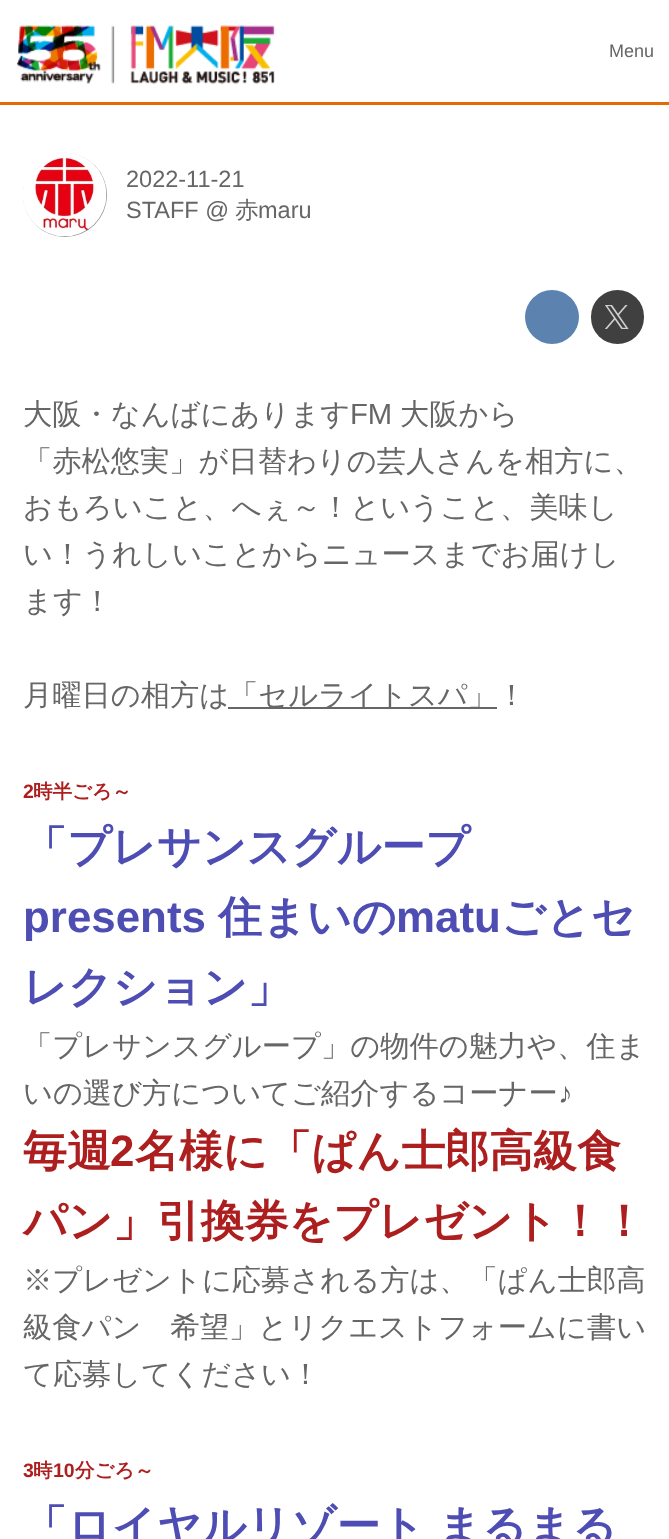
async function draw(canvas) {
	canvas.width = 669;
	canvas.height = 1539;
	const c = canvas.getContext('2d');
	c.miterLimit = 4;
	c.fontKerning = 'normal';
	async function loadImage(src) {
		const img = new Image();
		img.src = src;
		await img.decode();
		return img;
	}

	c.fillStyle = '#fff';
	c.fillRect(0, 0, 669, 1539);
	c.drawImage(await loadImage('img1.png'), 16, 25, 259, 60);
	c.font = '18px Liberation Sans';
	c.fillStyle = '#666';
	c.fillText('Menu', 609, 57);
	c.fillStyle = '#060203b3';
	c.fillRect(0, 102, 669, 3);
	c.fillStyle = '#ec6c00f2';
	c.fillRect(0, 102, 669, 3);
	c.fillStyle = '#888';
	c.beginPath();
	c.arc(65, 195, 42, 0, 2 * Math.PI);
	c.fill();
	c.drawImage(await loadImage('img2.png'), 23, 153, 84, 84);
	c.font = '23.5px Liberation Sans';
	c.fillStyle = '#666';
	c.fillText('2022-11-21', 126, 187);
	c.fillText('STAFF @', 126, 218);
	c.font = '500 23.5px WenQuanYi Zen Hei';
	c.fillText('赤', 235, 218);
	c.font = '23.5px Liberation Sans';
	c.fillText('maru', 258, 218);
	c.fillStyle = '#5c83b0';
	c.beginPath();
	c.arc(552, 317, 27, 0, 2 * Math.PI);
	c.fill();
	c.fillStyle = '#404040';
	c.beginPath();
	c.roundRect(591, 290, 53, 54, 26.5);
	c.fill();
	c.drawImage(await loadImage('img3.png'), 605, 305, 24, 24);
	c.font = '500 29.25px WenQuanYi Zen Hei';
	c.fillStyle = '#666';
	c.fillText('大阪・なんばにあります', 23, 424);
	c.font = '29.25px Liberation Sans';
	c.fillText('FM', 350, 424);
	c.font = '500 29.25px WenQuanYi Zen Hei';
	for (const [text, x, y] of [
		['大阪から', 400, 424],
		['「赤松悠実」が日替わりの芸人さんを相方に、', 23, 471],
		['おもろいこと、へぇ～！ということ、美味し', 23, 517],
		['い！うれしいことからニュースまでお届けし', 23, 564],
		['ます！', 23, 611],
		['月曜日の相方は', 23, 705],
	]) {
		c.fillText(text, x, y);
	}
	c.fillRect(228, 707, 269, 2);
	c.fillText('「セルライトスパ」！', 229, 705);
	c.font = 'bold 19.5px Liberation Sans';
	c.fillStyle = '#ad1f1f';
	c.fillText('2', 23, 798);
	c.font = 'bold 19.5px WenQuanYi Zen Hei';
	c.fillText('時半ごろ～', 33, 798);
	c.font = 'bold 43.9px WenQuanYi Zen Hei';
	c.fillStyle = '#4d4db3';
	c.fillText('「プレサンスグループ', 23, 862);
	c.font = 'bold 43.9px Liberation Sans';
	c.fillText('presents', 23, 932);
	c.font = 'bold 43.9px WenQuanYi Zen Hei';
	c.fillText('住まいの', 218, 932);
	c.font = 'bold 43.9px Liberation Sans';
	c.fillText('matu', 396, 932);
	c.font = 'bold 43.9px WenQuanYi Zen Hei';
	c.fillText('ごとセ', 501, 932);
	c.fillText('レクション」', 23, 1002);
	c.font = '500 29.25px WenQuanYi Zen Hei';
	c.fillStyle = '#666';
	c.fillText('「プレサンスグループ」の物件の魅力や、住ま', 23, 1056);
	c.fillText('いの選び方についてご紹介するコーナー', 23, 1103);
	c.font = '29.25px Liberation Sans';
	c.fillText('♪', 558, 1103);
	c.font = 'bold 43.9px WenQuanYi Zen Hei';
	c.fillStyle = '#ad1f1f';
	c.fillText('毎週', 23, 1166);
	c.font = 'bold 43.9px Liberation Sans';
	c.fillText('2', 110, 1166);
	c.font = 'bold 43.9px WenQuanYi Zen Hei';
	c.fillText('名様に「ぱん士郎高級食', 135, 1166);
	c.fillText('パン」引換券をプレゼント！！', 23, 1236);
	c.font = '500 29.25px WenQuanYi Zen Hei';
	c.fillStyle = '#666';
	for (const [text, x, y] of [
		['※プレゼントに応募される方は、「ぱん士郎高', 23, 1290],
		['級食パン　希望」とリクエストフォームに書い', 23, 1337],
		['て応募してください！', 23, 1384],
	]) {
		c.fillText(text, x, y);
	}
	c.font = 'bold 19.5px Liberation Sans';
	c.fillStyle = '#ad1f1f';
	c.fillText('3', 23, 1477);
	c.font = 'bold 19.5px WenQuanYi Zen Hei';
	c.fillText('時', 33, 1477);
	c.font = 'bold 19.5px Liberation Sans';
	c.fillText('10', 53, 1477);
	c.font = 'bold 19.5px WenQuanYi Zen Hei';
	c.fillText('分ごろ～', 75, 1477);
	c.wordSpacing = '-1px';
	c.font = 'bold 43.9px WenQuanYi Zen Hei';
	c.fillStyle = '#4d4db3';
	c.fillText('「ロイヤルリゾート まるまる', 23, 1541);
}

draw(document.querySelector('canvas'));
